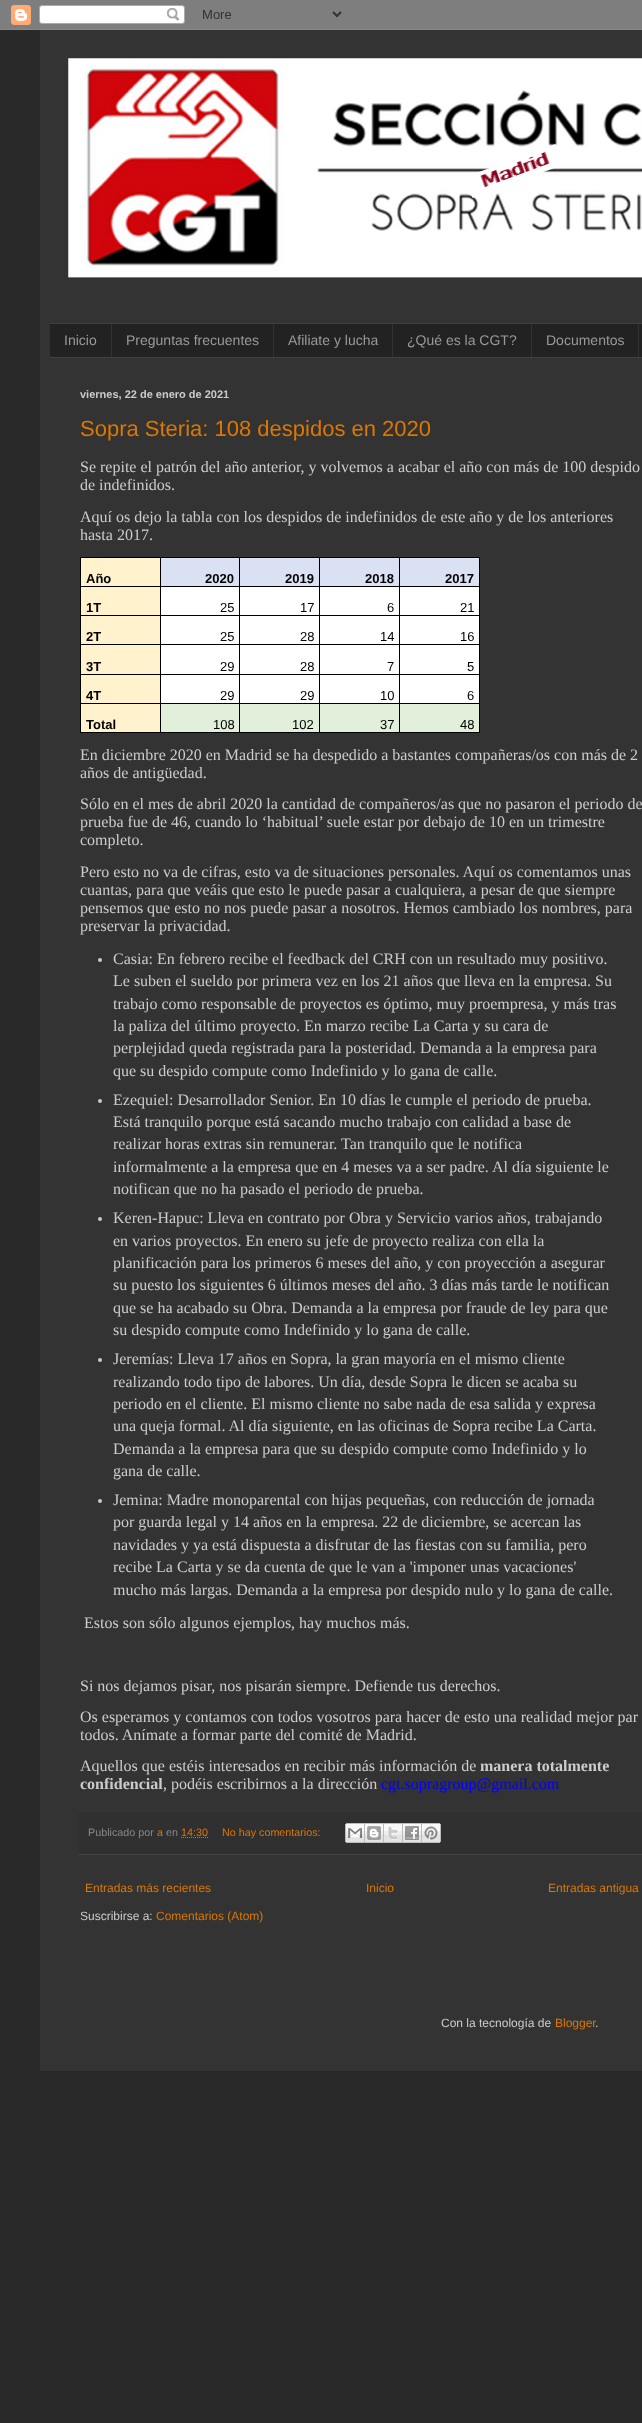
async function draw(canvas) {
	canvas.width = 642;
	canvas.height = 2423;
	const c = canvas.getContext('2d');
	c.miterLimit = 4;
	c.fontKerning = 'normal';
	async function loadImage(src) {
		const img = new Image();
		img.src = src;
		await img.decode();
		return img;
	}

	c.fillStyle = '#292929';
	c.fillRect(0, 0, 642, 2423);
	c.drawImage(await loadImage('img1.png'), 0, 0, 642, 30);
	c.fillStyle = '#333';
	c.fillRect(40, 30, 602, 2041);
	c.drawImage(await loadImage('img2.png'), 68, 58, 574, 220);
	for (const [x, y, w, h, color] of [
		[50, 324, 592, 33, '#222'],
		[50, 323, 592, 1, '#404040'],
		[50, 357, 592, 1, '#404040'],
	]) {
		c.fillStyle = color;
		c.fillRect(x, y, w, h);
	}
	c.font = '14px Liberation Sans';
	c.fillStyle = '#999';
	c.fillText('Inicio', 64, 345);
	c.fillStyle = '#333';
	c.fillRect(111, 324, 1, 33);
	c.fillStyle = '#999';
	c.fillText('Preguntas frecuentes', 126, 345);
	c.fillStyle = '#333';
	c.fillRect(273, 324, 1, 33);
	c.fillStyle = '#999';
	c.fillText('Afiliate y lucha', 288, 345);
	c.fillStyle = '#333';
	c.fillRect(392, 324, 1, 33);
	c.fillStyle = '#999';
	c.fillText('¿Qué es la CGT?', 407, 345);
	c.fillStyle = '#333';
	c.fillRect(531, 324, 1, 33);
	c.fillStyle = '#999';
	c.fillText('Documentos', 546, 345);
	c.fillStyle = '#333';
	c.fillRect(638, 324, 1, 33);
	c.font = 'bold 11px Liberation Sans';
	c.fillStyle = '#ccc';
	c.fillText('viernes, 22 de enero de 2021', 80, 398);
	c.font = '22px Liberation Sans';
	c.fillStyle = '#d70';
	c.fillText('Sopra Steria: 108 despidos en 2020', 80, 436);
	c.font = '16px Liberation Serif';
	c.fillStyle = '#ccc';
	for (const [text, x, y] of [
		['Se repite el patrón del año anterior, y volvemos a acabar el año con más de 100 despido', 80, 472],
		['de indefinidos.', 80, 490],
		['Aquí os dejo la tabla con los despidos de indefinidos de este año y de los anteriores', 80, 522],
		['hasta 2017.', 80, 540],
	]) {
		c.fillText(text, x, y);
	}
	for (const [x, y, w, h, color] of [
		[81, 558, 79, 28, '#fff2cc'],
		[399, 557, 81, 1, '#000'],
		[479, 586, 1, 147, '#000'],
		[479, 557, 1, 30, '#000'],
		[399, 732, 81, 1, '#000'],
		[399, 703, 1, 30, '#000'],
		[399, 703, 81, 1, '#000'],
		[399, 674, 1, 30, '#000'],
		[399, 674, 81, 1, '#000'],
		[399, 644, 1, 31, '#000'],
		[399, 644, 81, 1, '#000'],
		[399, 615, 1, 30, '#000'],
		[399, 615, 81, 1, '#000'],
		[399, 586, 1, 30, '#000'],
		[399, 586, 81, 1, '#000'],
		[399, 557, 1, 30, '#000'],
		[319, 557, 81, 1, '#000'],
		[319, 732, 81, 1, '#000'],
		[319, 703, 1, 30, '#000'],
		[319, 703, 81, 1, '#000'],
		[319, 674, 1, 30, '#000'],
		[319, 674, 81, 1, '#000'],
		[319, 644, 1, 31, '#000'],
		[319, 644, 81, 1, '#000'],
		[319, 615, 1, 30, '#000'],
		[319, 615, 81, 1, '#000'],
		[319, 586, 1, 30, '#000'],
		[319, 586, 81, 1, '#000'],
		[319, 557, 1, 30, '#000'],
		[239, 557, 81, 1, '#000'],
		[239, 732, 81, 1, '#000'],
		[239, 703, 1, 30, '#000'],
		[239, 703, 81, 1, '#000'],
		[239, 674, 1, 30, '#000'],
		[239, 674, 81, 1, '#000'],
		[239, 644, 1, 31, '#000'],
		[239, 644, 81, 1, '#000'],
		[239, 615, 1, 30, '#000'],
		[239, 615, 81, 1, '#000'],
		[239, 586, 1, 30, '#000'],
		[239, 586, 81, 1, '#000'],
		[239, 557, 1, 30, '#000'],
		[160, 557, 80, 1, '#000'],
		[80, 586, 81, 1, '#000'],
		[80, 615, 81, 1, '#000'],
		[80, 644, 81, 1, '#000'],
		[80, 674, 81, 1, '#000'],
		[80, 703, 81, 1, '#000'],
		[160, 732, 80, 1, '#000'],
		[160, 703, 1, 30, '#000'],
		[160, 703, 80, 1, '#000'],
		[160, 674, 1, 30, '#000'],
		[160, 674, 80, 1, '#000'],
		[160, 644, 1, 31, '#000'],
		[160, 644, 80, 1, '#000'],
		[160, 615, 1, 30, '#000'],
		[160, 615, 80, 1, '#000'],
		[160, 586, 1, 30, '#000'],
		[160, 586, 80, 1, '#000'],
		[160, 557, 1, 30, '#000'],
		[80, 557, 81, 1, '#000'],
		[80, 732, 81, 1, '#000'],
		[80, 703, 1, 30, '#000'],
		[80, 674, 1, 30, '#000'],
		[80, 644, 1, 31, '#000'],
		[80, 615, 1, 30, '#000'],
		[80, 586, 1, 30, '#000'],
		[80, 557, 1, 30, '#000'],
	]) {
		c.fillStyle = color;
		c.fillRect(x, y, w, h);
	}
	c.font = 'bold 13px Liberation Sans';
	c.fillText('Año', 86, 583);
	c.fillStyle = '#d9e1f2';
	c.fillRect(161, 558, 78, 28);
	c.fillStyle = '#000';
	c.fillText('2020', 205, 583);
	c.fillStyle = '#d9e1f2';
	c.fillRect(240, 558, 79, 28);
	c.fillStyle = '#000';
	c.fillText('2019', 285, 583);
	c.fillStyle = '#d9e1f2';
	c.fillRect(320, 558, 79, 28);
	c.fillStyle = '#000';
	c.fillText('2018', 365, 583);
	c.fillStyle = '#d9e1f2';
	c.fillRect(400, 558, 79, 28);
	c.fillStyle = '#000';
	c.fillText('2017', 445, 583);
	c.fillStyle = '#fff2cc';
	c.fillRect(81, 587, 79, 28);
	c.fillStyle = '#000';
	c.fillText('1T', 86, 612);
	c.fillStyle = '#fff';
	c.fillRect(161, 587, 78, 28);
	c.font = '13px Liberation Sans';
	c.fillStyle = '#000';
	c.fillText('25', 220, 612);
	c.fillStyle = '#fff';
	c.fillRect(240, 587, 79, 28);
	c.fillStyle = '#000';
	c.fillText('17', 300, 612);
	c.fillStyle = '#fff';
	c.fillRect(320, 587, 79, 28);
	c.fillStyle = '#000';
	c.fillText('6', 387, 612);
	c.fillStyle = '#fff';
	c.fillRect(400, 587, 79, 28);
	c.fillStyle = '#000';
	c.fillText('21', 460, 612);
	c.fillStyle = '#fff2cc';
	c.fillRect(81, 616, 79, 28);
	c.font = 'bold 13px Liberation Sans';
	c.fillStyle = '#000';
	c.fillText('2T', 86, 641);
	c.fillStyle = '#fff';
	c.fillRect(161, 616, 78, 28);
	c.font = '13px Liberation Sans';
	c.fillStyle = '#000';
	c.fillText('25', 220, 641);
	c.fillStyle = '#fff';
	c.fillRect(240, 616, 79, 28);
	c.fillStyle = '#000';
	c.fillText('28', 300, 641);
	c.fillStyle = '#fff';
	c.fillRect(320, 616, 79, 28);
	c.fillStyle = '#000';
	c.fillText('14', 380, 641);
	c.fillStyle = '#fff';
	c.fillRect(400, 616, 79, 28);
	c.fillStyle = '#000';
	c.fillText('16', 460, 641);
	c.fillStyle = '#fff2cc';
	c.fillRect(81, 645, 79, 29);
	c.font = 'bold 13px Liberation Sans';
	c.fillStyle = '#000';
	c.fillText('3T', 86, 671);
	c.fillStyle = '#fff';
	c.fillRect(161, 645, 78, 29);
	c.font = '13px Liberation Sans';
	c.fillStyle = '#000';
	c.fillText('29', 220, 671);
	c.fillStyle = '#fff';
	c.fillRect(240, 645, 79, 29);
	c.fillStyle = '#000';
	c.fillText('28', 300, 671);
	c.fillStyle = '#fff';
	c.fillRect(320, 645, 79, 29);
	c.fillStyle = '#000';
	c.fillText('7', 387, 671);
	c.fillStyle = '#fff';
	c.fillRect(400, 645, 79, 29);
	c.fillStyle = '#000';
	c.fillText('5', 467, 671);
	c.fillStyle = '#fff2cc';
	c.fillRect(81, 675, 79, 28);
	c.font = 'bold 13px Liberation Sans';
	c.fillStyle = '#000';
	c.fillText('4T', 86, 700);
	c.fillStyle = '#fff';
	c.fillRect(161, 675, 78, 28);
	c.font = '13px Liberation Sans';
	c.fillStyle = '#000';
	c.fillText('29', 220, 700);
	c.fillStyle = '#fff';
	c.fillRect(240, 675, 79, 28);
	c.fillStyle = '#000';
	c.fillText('29', 300, 700);
	c.fillStyle = '#fff';
	c.fillRect(320, 675, 79, 28);
	c.fillStyle = '#000';
	c.fillText('10', 380, 700);
	c.fillStyle = '#fff';
	c.fillRect(400, 675, 79, 28);
	c.fillStyle = '#000';
	c.fillText('6', 467, 700);
	c.fillStyle = '#fff2cc';
	c.fillRect(81, 704, 79, 28);
	c.font = 'bold 13px Liberation Sans';
	c.fillStyle = '#000';
	c.fillText('Total', 86, 729);
	c.fillStyle = '#e2efda';
	c.fillRect(161, 704, 78, 28);
	c.font = '13px Liberation Sans';
	c.fillStyle = '#000';
	c.fillText('108', 213, 729);
	c.fillStyle = '#e2efda';
	c.fillRect(240, 704, 79, 28);
	c.fillStyle = '#000';
	c.fillText('102', 292, 729);
	c.fillStyle = '#e2efda';
	c.fillRect(320, 704, 79, 28);
	c.fillStyle = '#000';
	c.fillText('37', 380, 729);
	c.fillStyle = '#e2efda';
	c.fillRect(400, 704, 79, 28);
	c.fillStyle = '#000';
	c.fillText('48', 460, 729);
	c.font = '16px Liberation Serif';
	c.fillStyle = '#ccc';
	for (const [text, x, y] of [
		['En diciembre 2020 en Madrid se ha despedido a bastantes compañeras/os con más de 2', 80, 760],
		['años de antigüedad.', 80, 778],
		['Sólo en el mes de abril 2020 la cantidad de compañeros/as que no pasaron el periodo de', 80, 809],
		['prueba fue de 46, cuando lo ‘habitual’ suele estar por debajo de 10 en un trimestre', 80, 827],
		['completo.', 80, 845],
		['Pero esto no va de cifras, esto va de situaciones personales. Aquí os comentamos unas', 80, 877],
		['cuantas, para que veáis que esto le puede pasar a cualquiera, a pesar de que siempre', 80, 895],
		['pensemos que esto no nos puede pasar a nosotros. Hemos cambiado los nombres, para', 80, 913],
		['preservar la privacidad.', 80, 931],
	]) {
		c.fillText(text, x, y);
	}
	c.beginPath();
	c.arc(100, 960, 2, 0, 2 * Math.PI);
	c.fill();
	for (const [text, x, y] of [
		['Casia: En febrero recibe el feedback del CRH con un resultado muy positivo.', 113, 964],
		['Le suben el sueldo por primera vez en los 21 años que lleva en la empresa. Su', 113, 986],
		['trabajo como responsable de proyectos es óptimo, muy proempresa, y más tras', 113, 1009],
		['la paliza del último proyecto. En marzo recibe La Carta y su cara de', 113, 1031],
		['perplejidad queda registrada para la posteridad. Demanda a la empresa para', 113, 1053],
		['que su despido compute como Indefinido y lo gana de calle.', 113, 1076],
	]) {
		c.fillText(text, x, y);
	}
	c.beginPath();
	c.arc(100, 1101, 2, 0, 2 * Math.PI);
	c.fill();
	for (const [text, x, y] of [
		['Ezequiel: Desarrollador Senior. En 10 días le cumple el periodo de prueba.', 113, 1105],
		['Está tranquilo porque está sacando mucho trabajo con calidad a base de', 113, 1127],
		['realizar horas extras sin remunerar. Tan tranquilo que le notifica', 113, 1149],
		['informalmente a la empresa que en 4 meses va a ser padre. Al día siguiente le', 113, 1172],
		['notifican que no ha pasado el periodo de prueba.', 113, 1194],
	]) {
		c.fillText(text, x, y);
	}
	c.beginPath();
	c.arc(100, 1219, 2, 0, 2 * Math.PI);
	c.fill();
	for (const [text, x, y] of [
		['Keren-Hapuc: Lleva en contrato por Obra y Servicio varios años, trabajando', 113, 1223],
		['en varios proyectos. En enero su jefe de proyecto realiza con ella la', 113, 1246],
		['planificación para los primeros 6 meses del año, y con proyección a asegurar', 113, 1268],
		['su puesto los siguientes 6 últimos meses del año. 3 días más tarde le notifican', 113, 1290],
		['que se ha acabado su Obra. Demanda a la empresa por fraude de ley para que', 113, 1313],
		['su despido compute como Indefinido y lo gana de calle.', 113, 1335],
	]) {
		c.fillText(text, x, y);
	}
	c.beginPath();
	c.arc(100, 1360, 2, 0, 2 * Math.PI);
	c.fill();
	for (const [text, x, y] of [
		['Jeremías: Lleva 17 años en Sopra, la gran mayoría en el mismo cliente', 113, 1364],
		['realizando todo tipo de labores. Un día, desde Sopra le dicen se acaba su', 113, 1387],
		['periodo en el cliente. El mismo cliente no sabe nada de esa salida y expresa', 113, 1409],
		['una queja formal. Al día siguiente, en las oficinas de Sopra recibe La Carta.', 113, 1431],
		['Demanda a la empresa para que su despido compute como Indefinido y lo', 113, 1454],
		['gana de calle.', 113, 1476],
	]) {
		c.fillText(text, x, y);
	}
	c.beginPath();
	c.arc(100, 1501, 2, 0, 2 * Math.PI);
	c.fill();
	for (const [text, x, y] of [
		['Jemina: Madre monoparental con hijas pequeñas, con reducción de jornada', 113, 1505],
		['por guarda legal y 14 años en la empresa. 22 de diciembre, se acercan las', 113, 1527],
		['navidades y ya está dispuesta a disfrutar de las fiestas con su familia, pero', 113, 1550],
		['recibe La Carta y se da cuenta de que le van a \'imponer unas vacaciones\'', 113, 1572],
		['mucho más largas. Demanda a la empresa por despido nulo y lo gana de calle.', 113, 1595],
		['Estos son sólo algunos ejemplos, hay muchos más.', 84, 1628],
		['Si nos dejamos pisar, nos pisarán siempre. Defiende tus derechos.', 80, 1691],
		['Os esperamos y contamos con todos vosotros para hacer de esto una realidad mejor par', 80, 1722],
		['todos. Anímate a formar parte del comité de Madrid.', 80, 1740],
		['Aquellos que estéis interesados en recibir más información de', 80, 1771],
	]) {
		c.fillText(text, x, y);
	}
	c.font = 'bold 16px Liberation Serif';
	c.fillText('manera totalmente', 480, 1771);
	c.fillText('confidencial', 80, 1789);
	c.font = '16px Liberation Serif';
	c.fillText(', podéis escribirnos a la dirección', 163, 1789);
	c.fillStyle = '#00f';
	c.fillText('cgt.sopragroup@gmail.com', 381, 1789);
	c.fillStyle = '#303030';
	c.fillRect(78, 1813, 564, 41);
	c.fillStyle = '#444';
	c.fillRect(78, 1854, 564, 1);
	c.font = '10.75px Liberation Sans';
	c.fillStyle = '#888';
	c.fillText('Publicado por', 88, 1836);
	c.fillStyle = '#d70';
	c.fillText('a', 157, 1836);
	c.fillStyle = '#888';
	c.fillText('en', 166, 1836);
	c.fillStyle = '#d70';
	c.fillText('14:30', 181, 1836);
	c.beginPath();
	c.moveTo(181, 1837.5);
	c.lineTo(208, 1837.5);
	c.strokeStyle = '#d70';
	c.setLineDash([1, 1]);
	c.stroke();
	c.fillText('No hay comentarios:', 222, 1836);
	c.drawImage(await loadImage('img3.png'), 345, 1823, 20, 20);
	c.drawImage(await loadImage('img4.png'), 365, 1823, 19, 20);
	c.drawImage(await loadImage('img5.png'), 384, 1823, 19, 20);
	c.drawImage(await loadImage('img6.png'), 403, 1823, 19, 20);
	c.drawImage(await loadImage('img7.png'), 422, 1823, 19, 20);
	c.font = '12px Liberation Sans';
	for (const [text, x, y] of [
		['Entradas más recientes', 85, 1892],
		['Inicio', 366, 1892],
		['Entradas antigua', 548, 1892],
	]) {
		c.fillText(text, x, y);
	}
	c.fillStyle = '#ccc';
	c.fillText('Suscribirse a:', 80, 1920);
	c.fillStyle = '#d70';
	c.fillText('Comentarios (Atom)', 156, 1920);
	c.fillStyle = '#ccc';
	c.fillText('Con la tecnología de', 441, 2027);
	c.fillStyle = '#d70';
	c.fillText('Blogger', 555, 2027);
	c.fillStyle = '#ccc';
	c.fillText('.', 595, 2027);
}

draw(document.querySelector('canvas'));
